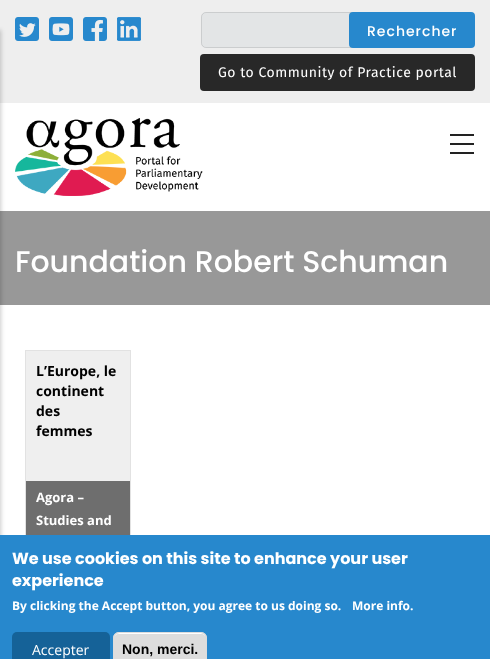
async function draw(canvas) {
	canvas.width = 490;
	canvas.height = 659;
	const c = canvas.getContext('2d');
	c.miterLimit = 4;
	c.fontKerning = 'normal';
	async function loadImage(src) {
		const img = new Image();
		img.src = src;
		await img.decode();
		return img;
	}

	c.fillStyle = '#fff';
	c.fillRect(0, 0, 490, 659);
	c.fillStyle = '#eee';
	c.fillRect(0, 0, 490, 103);
	c.fillStyle = '#989898';
	c.fillRect(0, 211, 490, 94);
	c.fillStyle = '#00000033';
	c.filter = 'blur(2px)';
	c.beginPath();
	c.rect(-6, 30, 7, 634);
	c.fill();
	c.filter = 'none';
	for (const [x, y, w, h, color] of [
		[450, 134, 24, 2, '#222'],
		[450, 143, 24, 2, '#222'],
		[450, 152, 24, 2, '#222'],
	]) {
		c.fillStyle = color;
		c.fillRect(x, y, w, h);
	}
	c.drawImage(await loadImage('img1.png'), 15, 118, 188, 78);
	c.drawImage(await loadImage('img2.png'), 15, 17, 24, 24);
	c.drawImage(await loadImage('img3.png'), 49, 17, 24, 24);
	c.drawImage(await loadImage('img4.png'), 83, 17, 24, 24);
	c.drawImage(await loadImage('img5.png'), 117, 17, 24, 24);
	c.fillStyle = '#e3e5e6';
	c.beginPath();
	c.roundRect(201, 12, 185, 36, [5, 0, 0, 5]);
	c.fill();
	c.beginPath();
	c.roundRect(201.5, 12.5, 184, 35, [4.5, 0, 0, 4.5]);
	c.strokeStyle = '#0000001a';
	c.stroke();
	c.fillStyle = '#2788cd';
	c.beginPath();
	c.roundRect(349, 12, 126, 36, 4);
	c.fill();
	c.letterSpacing = '1px';
	c.font = '500 14px Poppins';
	c.fillStyle = '#fff';
	c.fillText('Rechercher', 367, 36);
	c.fillStyle = '#282828';
	c.beginPath();
	c.roundRect(200, 54, 275, 37, 4);
	c.fill();
	c.letterSpacing = '0.5px';
	c.font = '14px Fira Sans';
	c.fillStyle = '#fff';
	c.fillText('Go to Community of Practice portal', 218, 77);
	c.letterSpacing = '0px';
	c.font = '500 30px Poppins';
	c.fillText('Foundation Robert Schuman', 15, 272);
	c.fillStyle = '#efefef';
	c.fillRect(26, 351, 104, 130);
	c.strokeStyle = '#e2e2e2';
	c.strokeRect(25.5, 350.5, 105, 211);
	c.font = 'bold 14px Open Sans';
	c.fillStyle = '#000';
	for (const [text, x, y] of [
		['L’Europe, le', 36, 376],
		['continent', 36, 396],
		['des', 36, 416],
		['femmes', 36, 436],
	]) {
		c.fillText(text, x, y);
	}
	c.fillStyle = '#6e6e6e';
	c.fillRect(26, 481, 104, 54);
	c.font = 'bold 13px Open Sans';
	c.fillStyle = '#fff';
	c.fillText('Agora –', 36, 502);
	c.fillText('Studies and', 36, 525);
	c.fillStyle = '#2788cd';
	c.fillRect(0, 535, 490, 124);
	c.font = 'bold 16px Poppins';
	c.fillStyle = '#fff';
	c.fillText('We use cookies on this site to enhance your user', 12, 564);
	c.fillText('experience', 12, 586);
	c.font = 'bold 12px Open Sans';
	c.fillText('By clicking the Accept button, you agree to us doing so.', 12, 610);
	c.fillText('More info.', 352, 610);
	c.fillStyle = '#156298';
	c.beginPath();
	c.roundRect(12, 632, 98, 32, 5);
	c.fill();
	c.font = '14px Open Sans';
	c.fillStyle = '#fff';
	c.fillText('Accepter', 32, 655);
	c.fillStyle = '#ddd';
	c.beginPath();
	c.roundRect(113, 632, 94, 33, 6);
	c.fill();
	c.fillStyle = '#fff';
	c.beginPath();
	c.moveTo(119, 634);
	c.lineTo(201, 634);
	c.bezierCurveTo(204, 634, 206, 636, 206, 639);
	c.bezierCurveTo(206, 630, 193, 633, 187, 633);
	c.lineTo(133, 633);
	c.bezierCurveTo(127, 633, 114, 630, 114, 639);
	c.bezierCurveTo(114, 636, 116, 634, 119, 634);
	c.closePath();
	c.fill();
	c.beginPath();
	c.roundRect(113.5, 632.5, 93, 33, 5.5);
	c.strokeStyle = '#dcdcdc';
	c.stroke();
	c.font = 'bold 14px Liberation Sans';
	c.fillStyle = '#000';
	c.fillText('Non, merci.', 122, 654);
}

draw(document.querySelector('canvas'));
